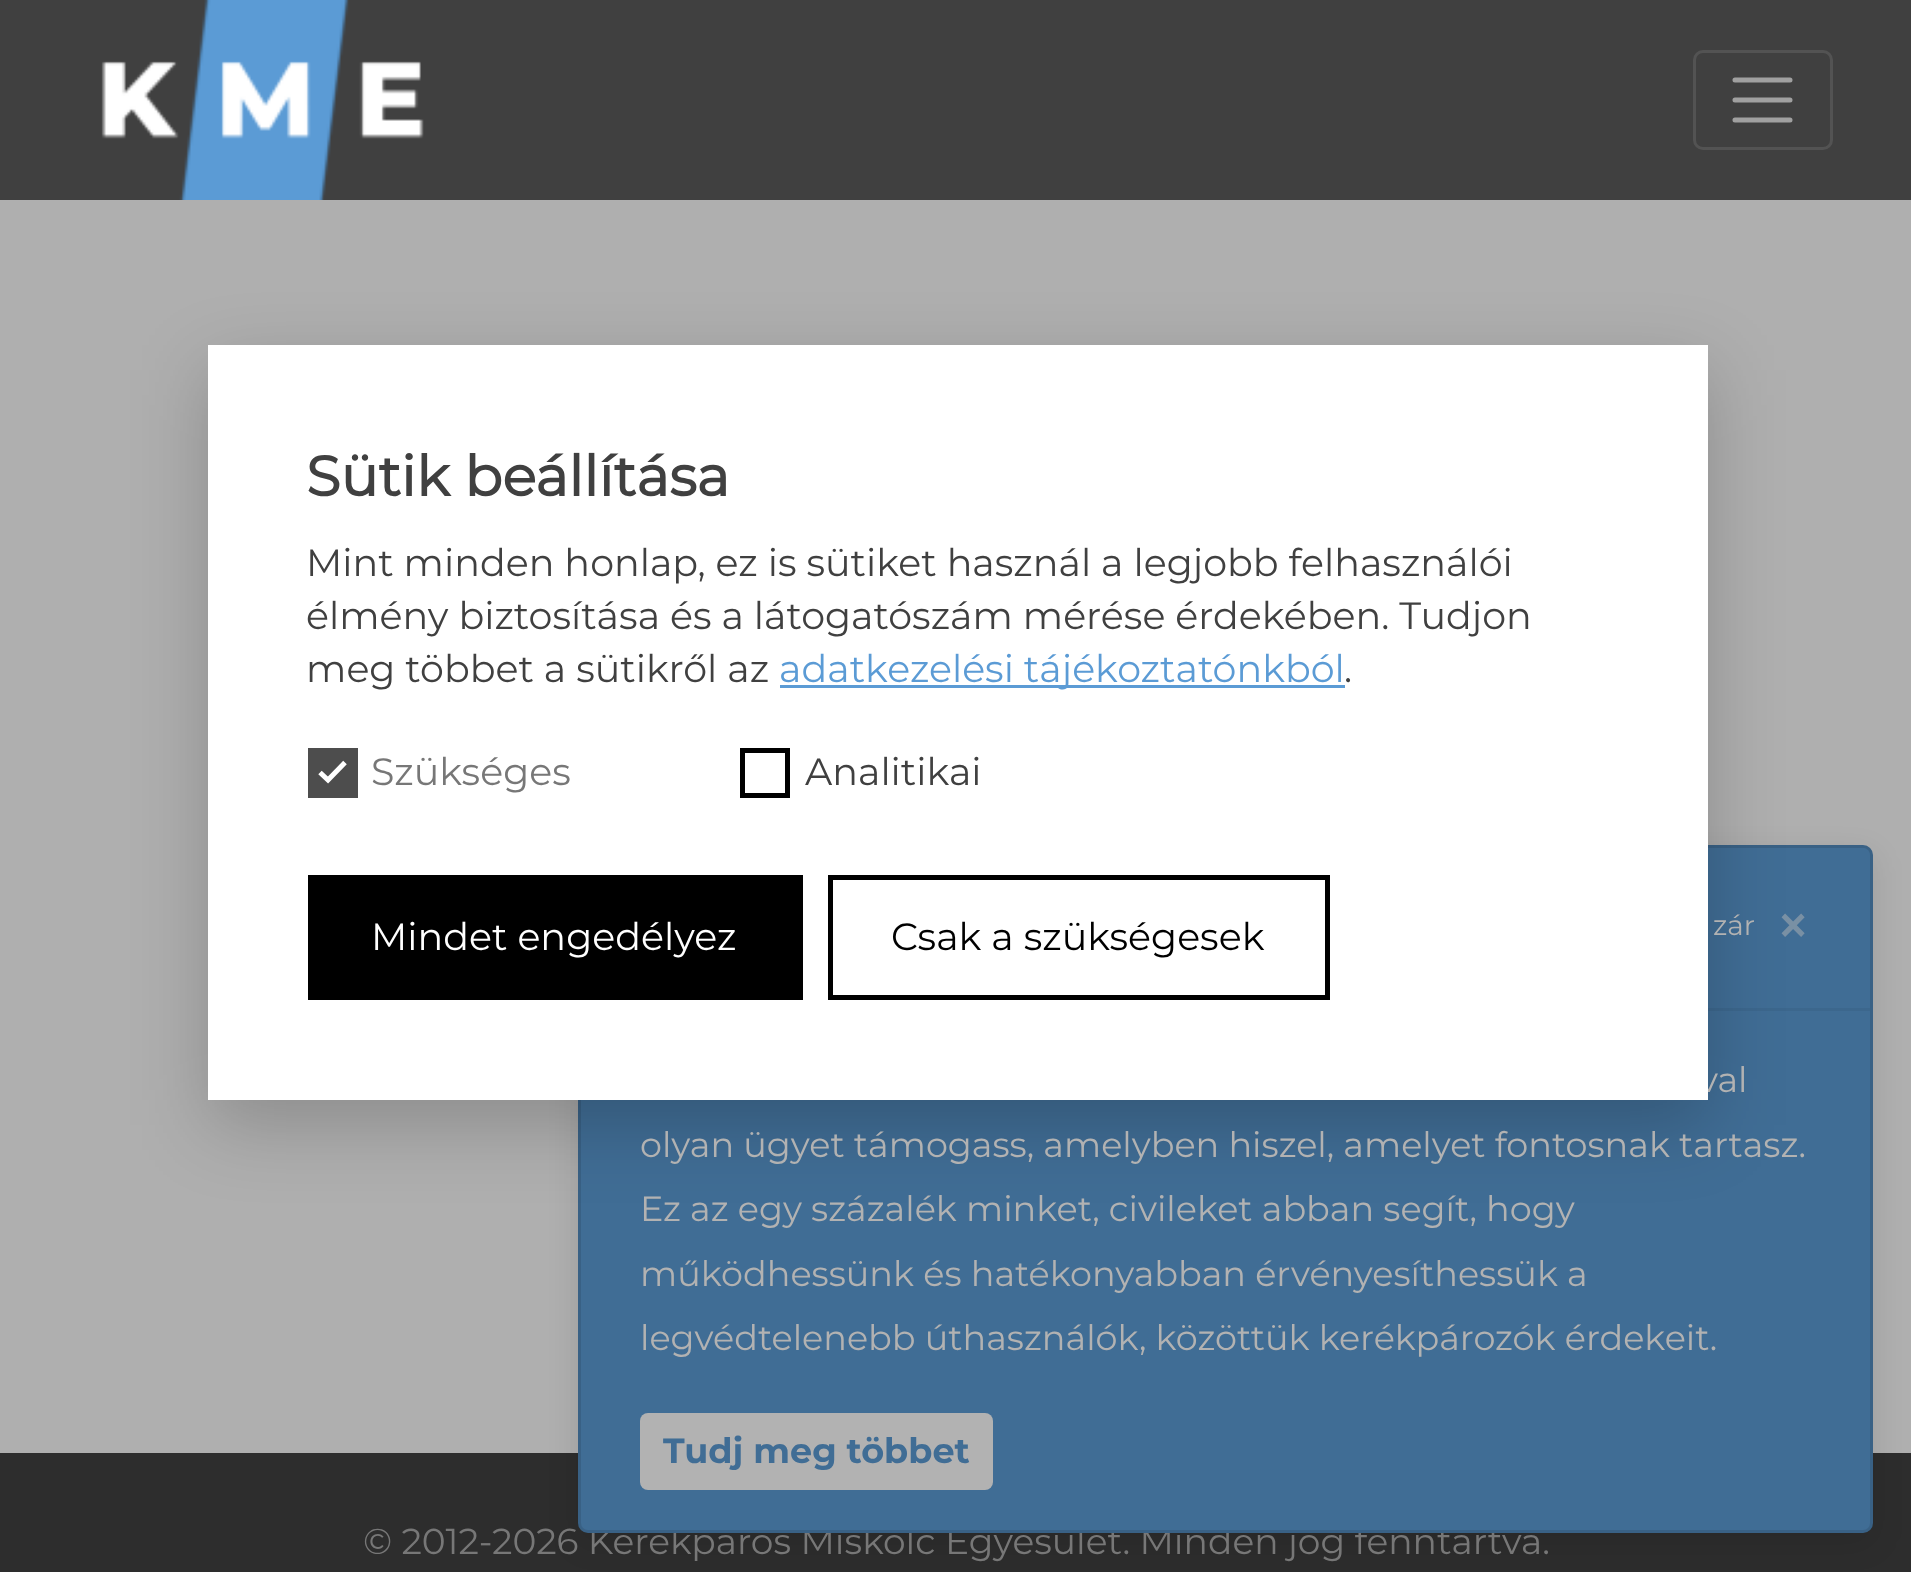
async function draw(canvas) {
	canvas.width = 1911;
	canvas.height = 1572;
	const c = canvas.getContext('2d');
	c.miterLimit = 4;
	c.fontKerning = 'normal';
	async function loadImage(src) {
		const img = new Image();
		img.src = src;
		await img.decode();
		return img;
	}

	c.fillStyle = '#afafaf';
	c.fillRect(0, 0, 1911, 1572);
	c.fillStyle = '#404040';
	c.fillRect(0, 0, 1911, 200);
	c.drawImage(await loadImage('img1.png'), 101, 0, 323, 200);
	c.beginPath();
	c.roundRect(1694.5, 51.5, 137, 97, 8.5);
	c.strokeStyle = '#535353';
	c.lineWidth = 3;
	c.stroke();
	c.beginPath();
	c.moveTo(1735, 80);
	c.lineTo(1790, 80);
	c.moveTo(1735, 100);
	c.lineTo(1790, 100);
	c.moveTo(1735, 120);
	c.lineTo(1790, 120);
	c.strokeStyle = '#a0a0a0';
	c.lineWidth = 5;
	c.lineCap = 'round';
	c.stroke();
	c.fillStyle = '#2d2d2d';
	c.fillRect(0, 1453, 1911, 119);
	c.fillStyle = '#0000001a';
	c.filter = 'blur(15px)';
	c.beginPath();
	c.roundRect(578, 855, 1295, 688, 10);
	c.fill();
	c.filter = 'none';
	c.font = '36px Montserrat';
	c.fillStyle = '#777';
	c.fillText('© 2012-2026 Kerékpáros Miskolc Egyesület. Minden jog fenntartva.', 363, 1554);
	c.fillStyle = '#406d95';
	c.beginPath();
	c.roundRect(578, 845, 1295, 688, 10);
	c.fill();
	c.beginPath();
	c.roundRect(579.5, 846.5, 1292, 685, 8.5);
	c.strokeStyle = '#0000001a';
	c.lineWidth = 3;
	c.stroke();
	c.beginPath();
	c.roundRect(580, 848, 1290, 162, [8, 8, 0, 0]);
	c.fill();
	c.fillStyle = '#0000000d';
	c.fillRect(1708, 1008, 162, 3);
	c.fillStyle = '#00000033';
	c.filter = 'blur(37.5px)';
	c.beginPath();
	c.rect(208, 370, 1500, 755);
	c.fill();
	c.filter = 'none';
	c.font = '35px Montserrat';
	c.fillStyle = '#b2b2b2';
	c.fillText('val', 1699, 1092);
	c.fillStyle = '#fff';
	c.fillRect(208, 345, 1500, 755);
	c.font = 'bold 56px "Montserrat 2"';
	c.fillStyle = '#404040';
	c.fillText('Sütik beállítása', 306, 496);
	c.font = '38px Montserrat';
	for (const [text, x, y] of [
		['Mint minden honlap, ez is sütiket használ a legjobb felhasználói', 306, 576],
		['élmény biztosítása és a látogatószám mérése érdekében. Tudjon', 306, 629],
		['meg többet a sütikről az', 306, 682],
	]) {
		c.fillText(text, x, y);
	}
	c.fillStyle = '#5b9bd5';
	c.fillRect(780, 685, 565, 3);
	c.fillText('adatkezelési tájékoztatónkból', 779, 682);
	c.fillStyle = '#404040';
	c.fillText('.', 1344, 682);
	c.fillStyle = '#4d4d4d';
	c.fillRect(308, 748, 50, 50);
	c.fillStyle = '#777';
	c.fillText('Szükséges', 371, 785);
	c.beginPath();
	c.moveTo(320, 772.5);
	c.lineTo(328, 780);
	c.lineTo(345, 762.5);
	c.strokeStyle = '#fff';
	c.lineWidth = 5;
	c.lineCap = 'butt';
	c.stroke();
	c.strokeStyle = '#000';
	c.strokeRect(742.5, 750.5, 45, 45);
	c.fillStyle = '#404040';
	c.fillText('Analitikai', 805, 785);
	c.fillStyle = '#000';
	c.fillRect(308, 875, 495, 125);
	c.fillStyle = '#fff';
	c.fillText('Mindet engedélyez', 371, 950);
	c.strokeRect(830.5, 877.5, 497, 120);
	c.fillStyle = '#000';
	c.fillText('Csak a szükségesek', 891, 950);
	c.font = '28px Montserrat';
	c.fillStyle = '#b2b2b2';
	c.fillText('zár', 1713, 935);
	c.font = 'bold 60px "Montserrat 2"';
	c.fillStyle = '#7990a4';
	c.fillText('×', 1775, 947);
	c.font = '35px Montserrat';
	c.fillStyle = '#b2b2b2';
	for (const [text, x, y] of [
		['olyan ügyet támogass, amelyben hiszel, amelyet fontosnak tartasz.', 640, 1157],
		['Ez az egy százalék minket, civileket abban segít, hogy', 640, 1221],
		['működhessünk és hatékonyabban érvényesíthessük a', 640, 1286],
		['legvédtelenebb úthasználók, közöttük kerékpározók érdekeit.', 640, 1350],
	]) {
		c.fillText(text, x, y);
	}
	c.beginPath();
	c.roundRect(640, 1413, 353, 77, 8);
	c.fill();
	c.font = 'bold 35px Montserrat';
	c.fillStyle = '#406d95';
	c.fillText('Tudj meg többet', 663, 1463);
}

draw(document.querySelector('canvas'));
